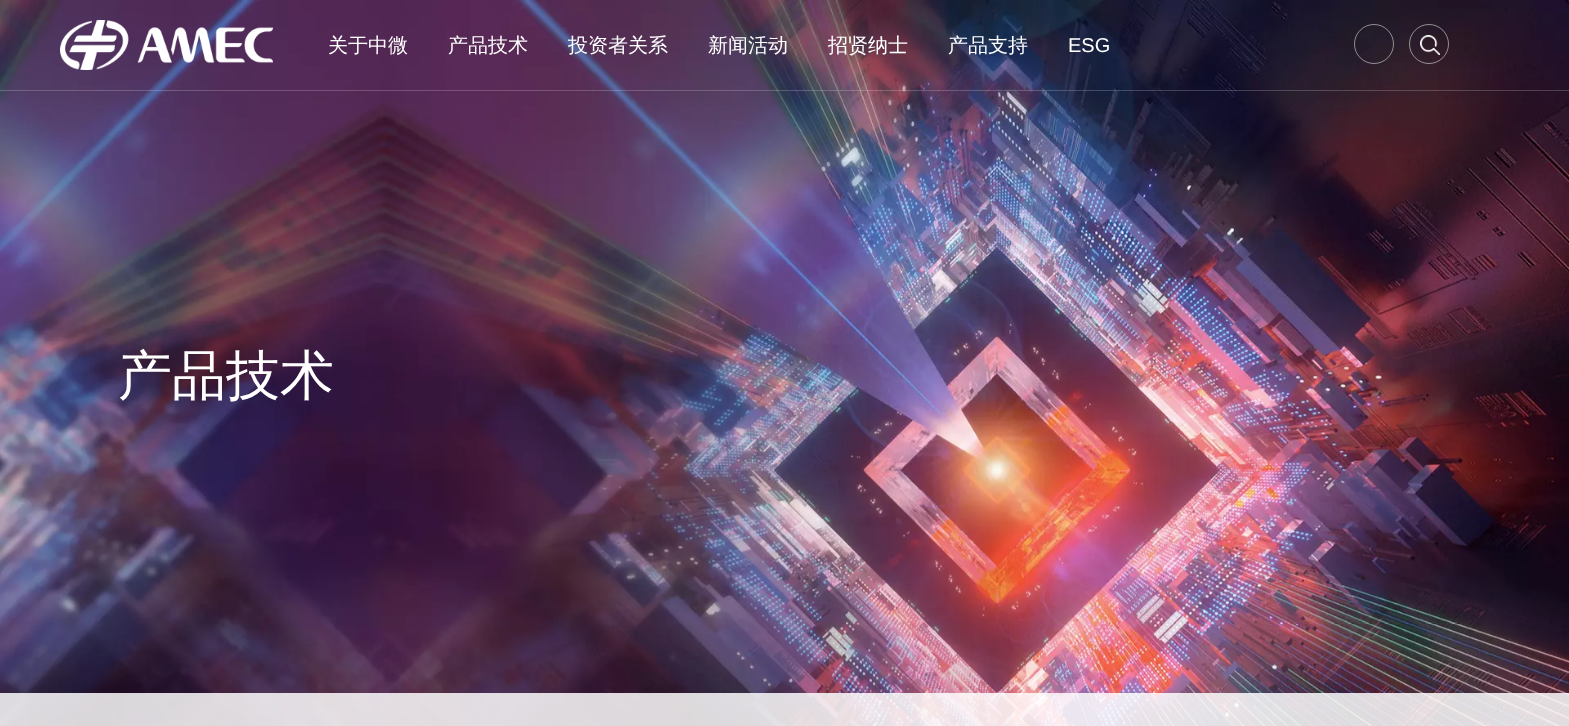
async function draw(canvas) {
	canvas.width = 1569;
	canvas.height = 726;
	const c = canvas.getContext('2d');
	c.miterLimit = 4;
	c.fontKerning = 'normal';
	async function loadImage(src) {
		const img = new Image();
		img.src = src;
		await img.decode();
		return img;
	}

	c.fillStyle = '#fff';
	c.fillRect(0, 0, 1569, 726);
	c.drawImage(await loadImage('img3.png'), 0, 0, 1569, 726);
	c.fillStyle = '#ffffff33';
	c.fillRect(0, 90, 1569, 1);
	c.drawImage(await loadImage('img1.png'), 60, 20, 213, 50);
	c.font = '500 20px WenQuanYi Zen Hei';
	c.fillStyle = '#fff';
	for (const [text, x, y] of [
		['关于中微', 328, 52],
		['产品技术', 448, 52],
		['投资者关系', 568, 52],
		['新闻活动', 708, 52],
		['招贤纳士', 828, 52],
		['产品支持', 948, 52],
	]) {
		c.fillText(text, x, y);
	}
	c.font = '20px Liberation Sans';
	c.fillText('ESG', 1068, 52);
	c.beginPath();
	c.arc(1374, 44, 19.5, 0, 2 * Math.PI);
	c.strokeStyle = '#ffffff80';
	c.stroke();
	c.beginPath();
	c.arc(1429, 44, 19.5, 0, 2 * Math.PI);
	c.stroke();
	c.drawImage(await loadImage('img2.png'), 1420, 35, 20, 20);
	c.font = '500 54px WenQuanYi Zen Hei';
	c.fillText('产品技术', 118, 394);
	c.fillStyle = '#ffffffd6';
	c.fillRect(0, 693, 1569, 33);
}

draw(document.querySelector('canvas'));
